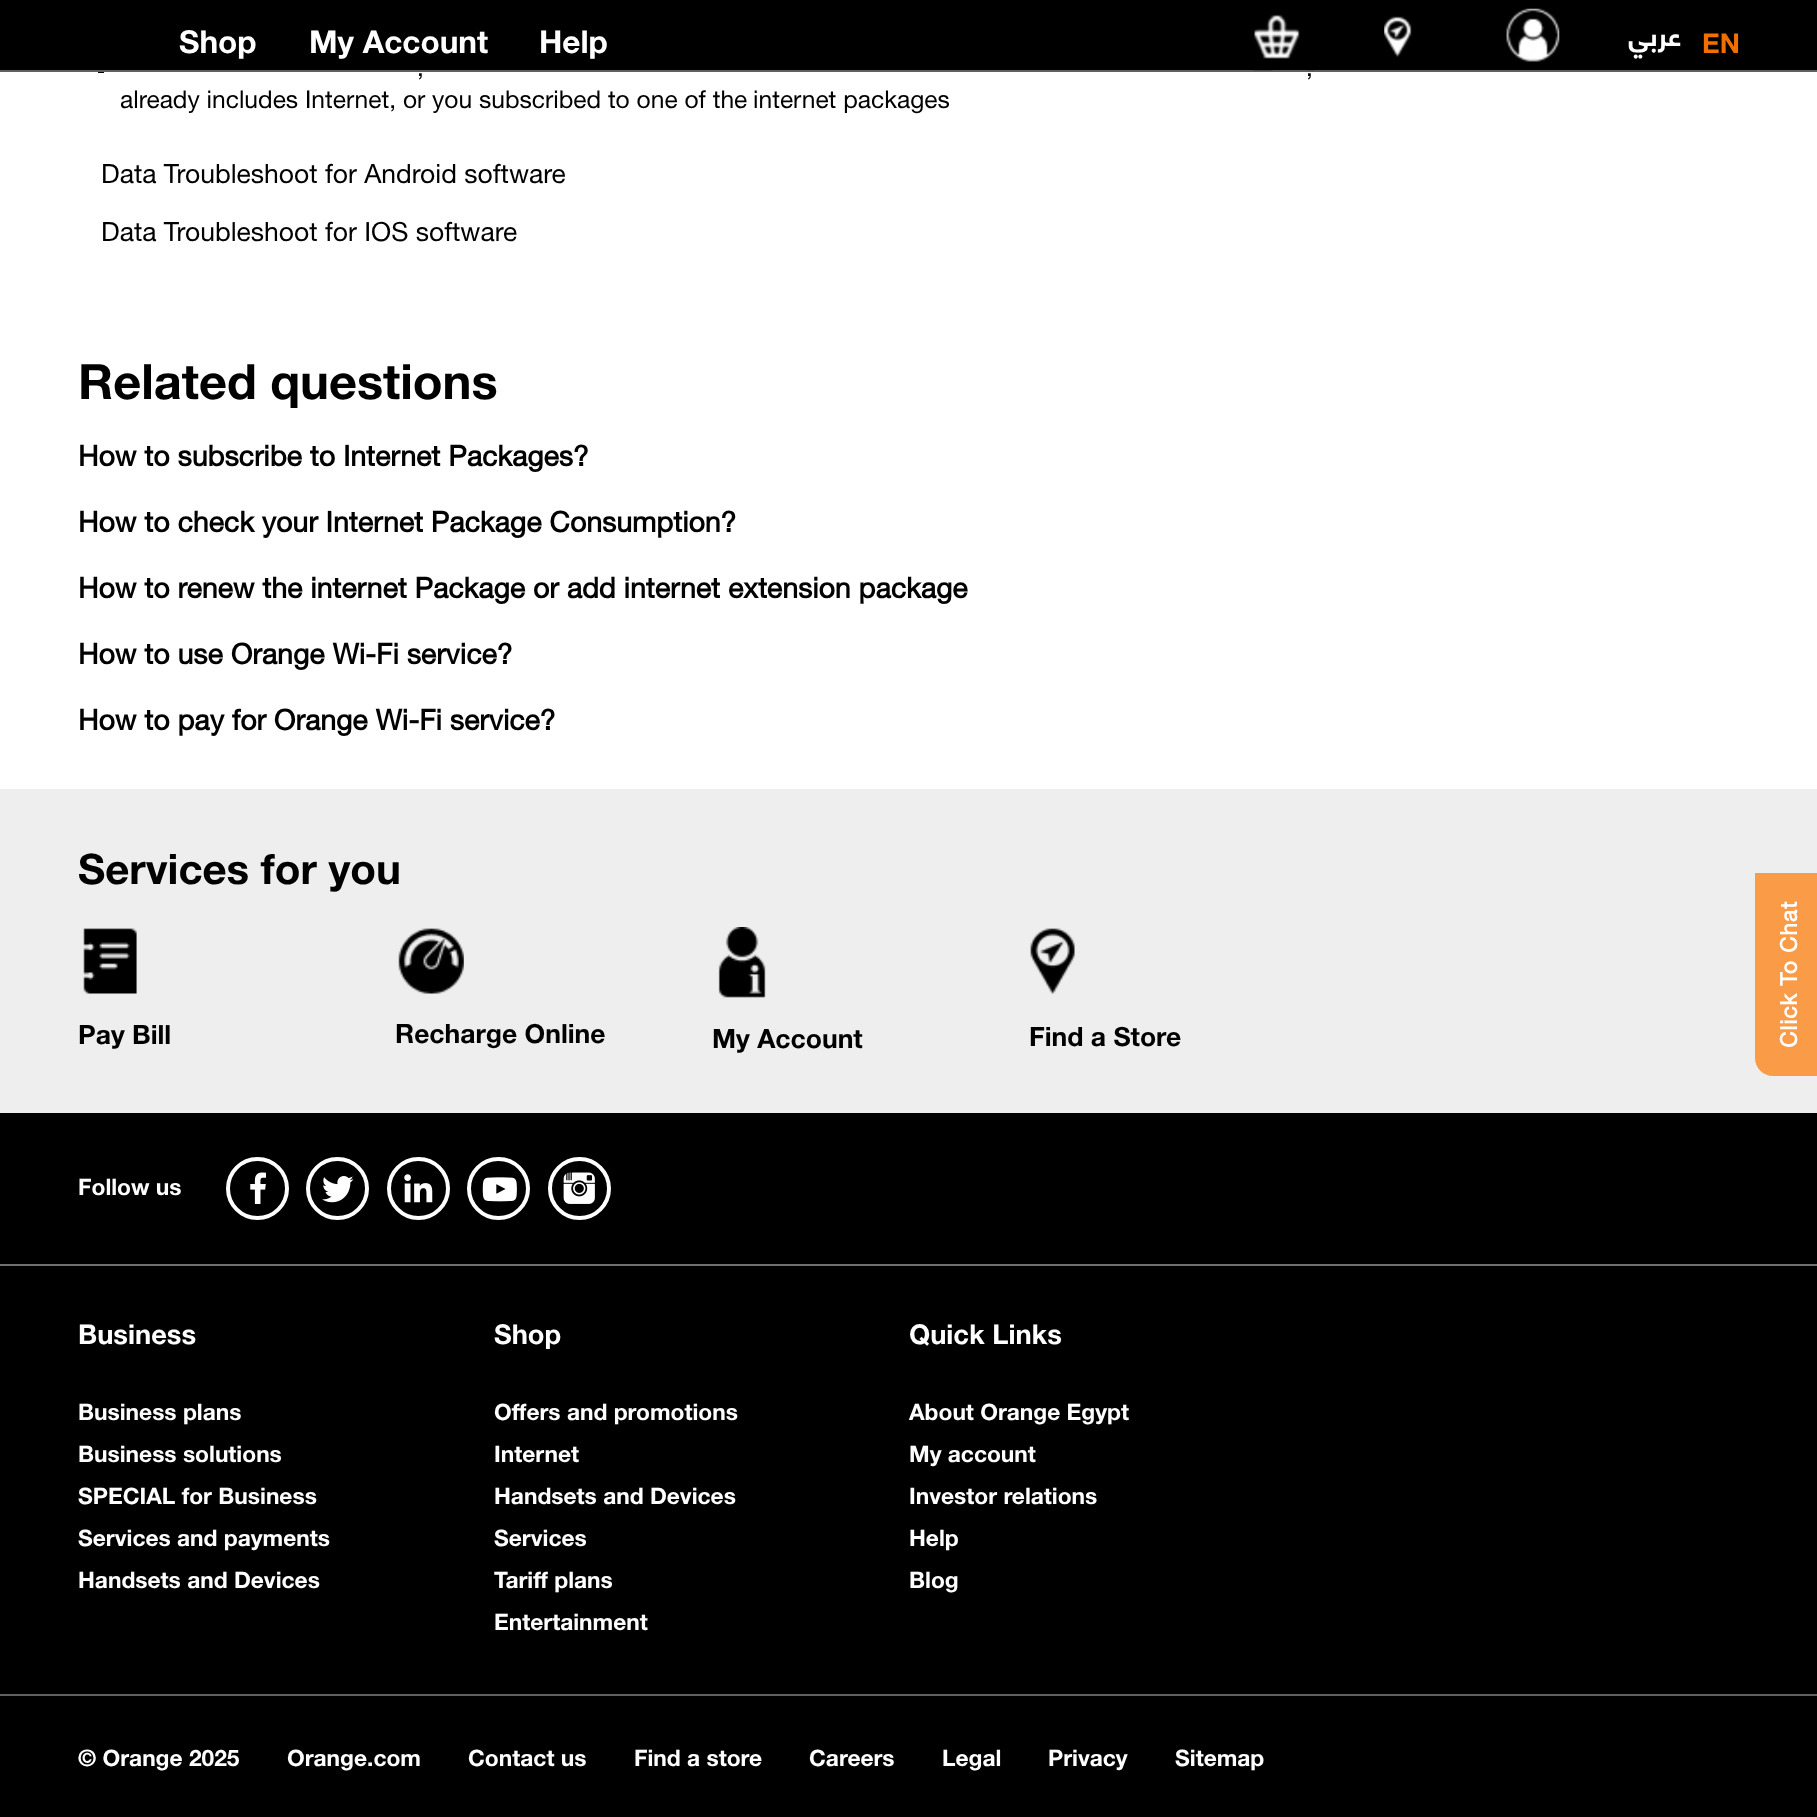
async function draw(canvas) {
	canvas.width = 1817;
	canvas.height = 1817;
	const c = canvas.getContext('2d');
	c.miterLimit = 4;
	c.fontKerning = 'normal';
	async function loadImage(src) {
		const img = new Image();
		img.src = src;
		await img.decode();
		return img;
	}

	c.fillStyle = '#fff';
	c.fillRect(0, 0, 1817, 1817);
	for (const [x, y, w, h, color] of [
		[98, 66, 6, 7, '#000'],
		[0, 0, 1817, 70, '#000'],
		[0, 70, 1817, 2, '#606060'],
	]) {
		c.fillStyle = color;
		c.fillRect(x, y, w, h);
	}
	c.font = 'bold 31.5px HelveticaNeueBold';
	c.fillStyle = '#fff';
	for (const [text, x, y] of [
		['Shop', 179, 53],
		['My Account', 309, 53],
		['Help', 539, 53],
	]) {
		c.fillText(text, x, y);
	}
	c.drawImage(await loadImage('img1.png'), 1253, 14, 61, 57);
	c.drawImage(await loadImage('img2.png'), 1384, 16, 28, 41);
	c.drawImage(await loadImage('img3.png'), 1506, 8, 54, 54);
	c.direction = 'rtl';
	c.font = 'bold 27.25px HelveticaNeueBold';
	c.fillText('عربي', 1681, 46);
	c.direction = 'ltr';
	c.fillStyle = '#f16e00';
	c.fillText('EN', 1702, 53);
	c.font = '24.6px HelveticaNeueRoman';
	c.fillStyle = '#000';
	for (const [text, x, y] of [
		[',', 417, 76],
		[',', 1306, 76],
		['already includes Internet, or you subscribed to one of the', 120, 108],
		['internet packages', 753, 108],
	]) {
		c.fillText(text, x, y);
	}
	c.font = '26.5px HelveticaNeueRoman';
	c.fillText('Data Troubleshoot for Android software', 101, 183);
	c.fillText('Data Troubleshoot for IOS software', 101, 241);
	c.font = 'bold 48.75px HelveticaNeueBold';
	c.fillText('Related questions', 78, 399);
	c.font = 'bold 28.45px HelveticaNeueRoman';
	for (const [text, x, y] of [
		['How to subscribe to Internet Packages?', 78, 466],
		['How to check your Internet Package Consumption?', 78, 532],
		['How to renew the internet Package or add internet extension package', 78, 598],
		['How to use Orange Wi-Fi service?', 78, 664],
		['How to pay for Orange Wi-Fi service?', 78, 730],
	]) {
		c.fillText(text, x, y);
	}
	c.fillStyle = '#eee';
	c.fillRect(0, 789, 1817, 324);
	c.font = 'bold 42px HelveticaNeueBold';
	c.fillStyle = '#000';
	c.fillText('Services for you', 78, 884);
	c.drawImage(await loadImage('img4.png'), 83, 928, 54, 66);
	c.font = 'bold 26.5px HelveticaNeueBold';
	c.fillText('Pay Bill', 78, 1044);
	c.drawImage(await loadImage('img5.png'), 398, 928, 66, 66);
	c.fillText('Recharge Online', 395, 1043);
	c.drawImage(await loadImage('img6.png'), 718, 927, 48, 71);
	c.fillText('My Account', 712, 1048);
	c.drawImage(await loadImage('img7.png'), 1030, 928, 45, 66);
	c.fillText('Find a Store', 1029, 1046);
	c.fillStyle = '#fa9c47';
	c.beginPath();
	c.moveTo(1755, 1058);
	c.lineTo(1755, 873);
	c.lineTo(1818, 873);
	c.lineTo(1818, 1076);
	c.lineTo(1773, 1076);
	c.bezierCurveTo(1763, 1076, 1755, 1068, 1755, 1058);
	c.closePath();
	c.fill();
	c.letterSpacing = '0.9px';
	c.font = 'bold 22.75px HelveticaNeueRoman';
	c.fillStyle = '#fff';
	c.save();
	c.translate(1797, 1048);
	c.rotate(-90 * Math.PI / 180);
	c.fillText('Click To Chat', 0, 0);
	c.restore();
	c.fillStyle = '#000';
	c.fillRect(0, 1113, 1817, 704);
	c.fillStyle = '#707070';
	c.fillRect(0, 1264, 1817, 2);
	c.letterSpacing = '0px';
	c.font = 'bold 22.75px HelveticaNeueBold';
	c.fillStyle = '#fff';
	c.fillText('Follow us', 78, 1195);
	c.beginPath();
	c.arc(257.5, 1188.5, 29.5, 0, 2 * Math.PI);
	c.strokeStyle = '#fff';
	c.lineWidth = 4;
	c.stroke();
	c.drawImage(await loadImage('img8.png'), 250, 1172, 16, 32);
	c.beginPath();
	c.arc(337.5, 1188.5, 29.5, 0, 2 * Math.PI);
	c.stroke();
	c.drawImage(await loadImage('img9.png'), 322, 1176, 32, 27);
	c.beginPath();
	c.arc(418.5, 1188.5, 29.5, 0, 2 * Math.PI);
	c.stroke();
	c.drawImage(await loadImage('img10.png'), 404, 1174, 29, 29);
	c.beginPath();
	c.arc(498.5, 1188.5, 29.5, 0, 2 * Math.PI);
	c.stroke();
	c.drawImage(await loadImage('img11.png'), 482, 1177, 35, 25);
	c.beginPath();
	c.arc(579.5, 1188.5, 29.5, 0, 2 * Math.PI);
	c.stroke();
	c.drawImage(await loadImage('img12.png'), 563, 1172, 32, 32);
	c.fillStyle = '#606060';
	c.fillRect(0, 1694, 1817, 2);
	c.font = 'bold 27.25px HelveticaNeueBold';
	c.fillStyle = '#fff';
	c.fillText('Business', 78, 1344);
	c.font = 'bold 22.75px HelveticaNeueBold';
	for (const [text, x, y] of [
		['Business plans', 78, 1420],
		['Business solutions', 78, 1462],
		['SPECIAL for Business', 78, 1504],
		['Services and payments', 78, 1546],
		['Handsets and Devices', 78, 1588],
	]) {
		c.fillText(text, x, y);
	}
	c.font = 'bold 27.25px HelveticaNeueBold';
	c.fillText('Shop', 494, 1344);
	c.font = 'bold 22.75px HelveticaNeueBold';
	for (const [text, x, y] of [
		['Offers and promotions', 494, 1420],
		['Internet', 494, 1462],
		['Handsets and Devices', 494, 1504],
		['Services', 494, 1546],
		['Tariff plans', 494, 1588],
		['Entertainment', 494, 1630],
	]) {
		c.fillText(text, x, y);
	}
	c.font = 'bold 27.25px HelveticaNeueBold';
	c.fillText('Quick Links', 909, 1344);
	c.font = 'bold 22.75px HelveticaNeueBold';
	for (const [text, x, y] of [
		['About Orange Egypt', 909, 1420],
		['My account', 909, 1462],
		['Investor relations', 909, 1504],
		['Help', 909, 1546],
		['Blog', 909, 1588],
		['© Orange 2025', 78, 1766],
		['Orange.com', 287, 1766],
		['Contact us', 468, 1766],
		['Find a store', 634, 1766],
		['Careers', 809, 1766],
		['Legal', 942, 1766],
		['Privacy', 1048, 1766],
		['Sitemap', 1175, 1766],
	]) {
		c.fillText(text, x, y);
	}
}

draw(document.querySelector('canvas'));
